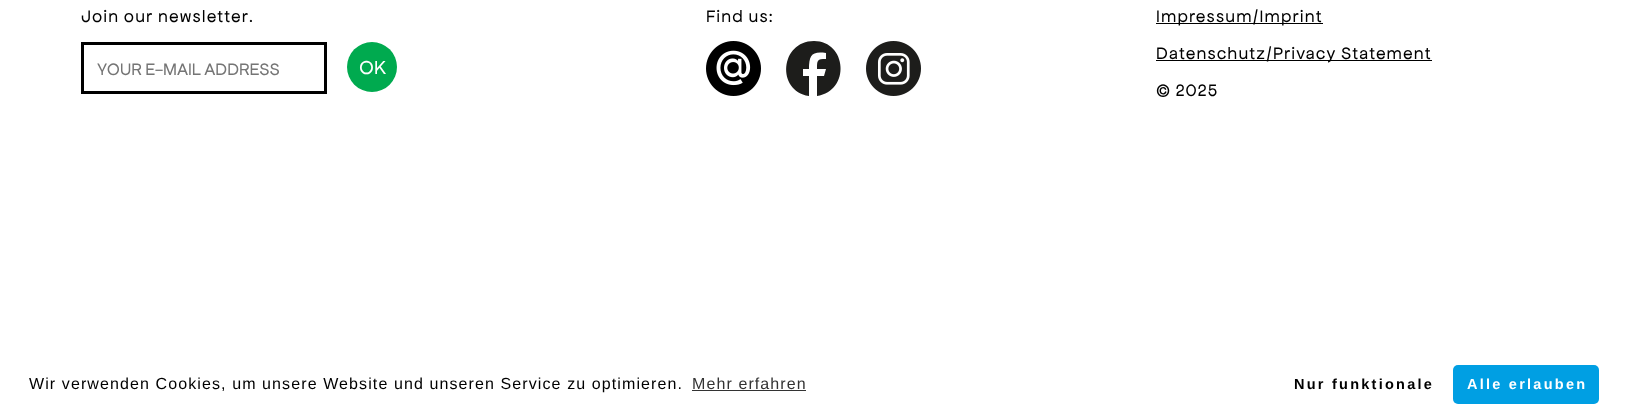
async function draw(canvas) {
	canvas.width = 1628;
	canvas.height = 420;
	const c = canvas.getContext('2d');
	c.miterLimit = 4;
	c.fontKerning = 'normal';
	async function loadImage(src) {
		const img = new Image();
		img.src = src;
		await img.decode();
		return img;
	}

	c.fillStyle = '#fff';
	c.fillRect(0, 0, 1628, 420);
	c.letterSpacing = '1.1px';
	c.font = '17.6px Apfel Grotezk';
	c.fillStyle = '#000';
	c.fillText('Join our newsletter.', 81, 22);
	c.strokeStyle = '#000';
	c.lineWidth = 3;
	c.strokeRect(82.5, 43.5, 243, 49);
	c.letterSpacing = '0px';
	c.fillStyle = '#757575';
	c.fillText('YOUR E-MAIL ADDRESS', 97, 75);
	c.fillStyle = '#00aa4f';
	c.beginPath();
	c.arc(372, 67, 25, 0, 2 * Math.PI);
	c.fill();
	c.font = '20px Apfel Grotezk';
	c.fillStyle = '#fff';
	c.fillText('OK', 359, 74);
	c.letterSpacing = '1.1px';
	c.font = '17.6px Apfel Grotezk';
	c.fillStyle = '#000';
	c.fillText('Find us:', 706, 22);
	c.drawImage(await loadImage('img1.png'), 706, 41, 55, 55);
	c.fillStyle = '#1d1d1b';
	c.beginPath();
	c.moveTo(814, 41);
	c.bezierCurveTo(780, 41, 776, 91, 809, 96);
	c.lineTo(809, 76);
	c.lineTo(803, 76);
	c.lineTo(803, 69);
	c.lineTo(809, 69);
	c.bezierCurveTo(809, 55, 812, 51, 826, 53);
	c.lineTo(826, 59);
	c.bezierCurveTo(817, 59, 817, 60, 817, 69);
	c.lineTo(826, 69);
	c.lineTo(824, 76);
	c.lineTo(817, 76);
	c.lineTo(817, 96);
	c.bezierCurveTo(851, 91, 847, 41, 814, 41);
	c.fill();
	c.drawImage(await loadImage('img2.png'), 866, 41, 55, 55);
	c.fillStyle = '#000';
	c.fillRect(1156, 23, 167, 1);
	c.fillText('Impressum/Imprint', 1156, 22);
	c.fillRect(1156, 60, 276, 1);
	c.fillText('Datenschutz/Privacy Statement', 1156, 59);
	c.fillText('© 2025', 1156, 96);
	c.font = '16px Liberation Sans';
	c.fillText('Wir verwenden Cookies, um unsere Website und unseren Service zu optimieren.', 29, 389);
	c.fillStyle = '#333';
	c.fillText('Mehr erfahren', 692, 389);
	c.fillRect(692, 390, 114, 1);
	c.letterSpacing = '2.25px';
	c.font = 'bold 14.5px Liberation Sans';
	c.fillStyle = '#000';
	c.fillText('Nur funktionale', 1294, 389);
	c.fillStyle = '#009fe3';
	c.beginPath();
	c.roundRect(1453, 365, 146, 39, 5);
	c.fill();
	c.fillStyle = '#fff';
	c.fillText('Alle erlauben', 1467, 389);
}

draw(document.querySelector('canvas'));
